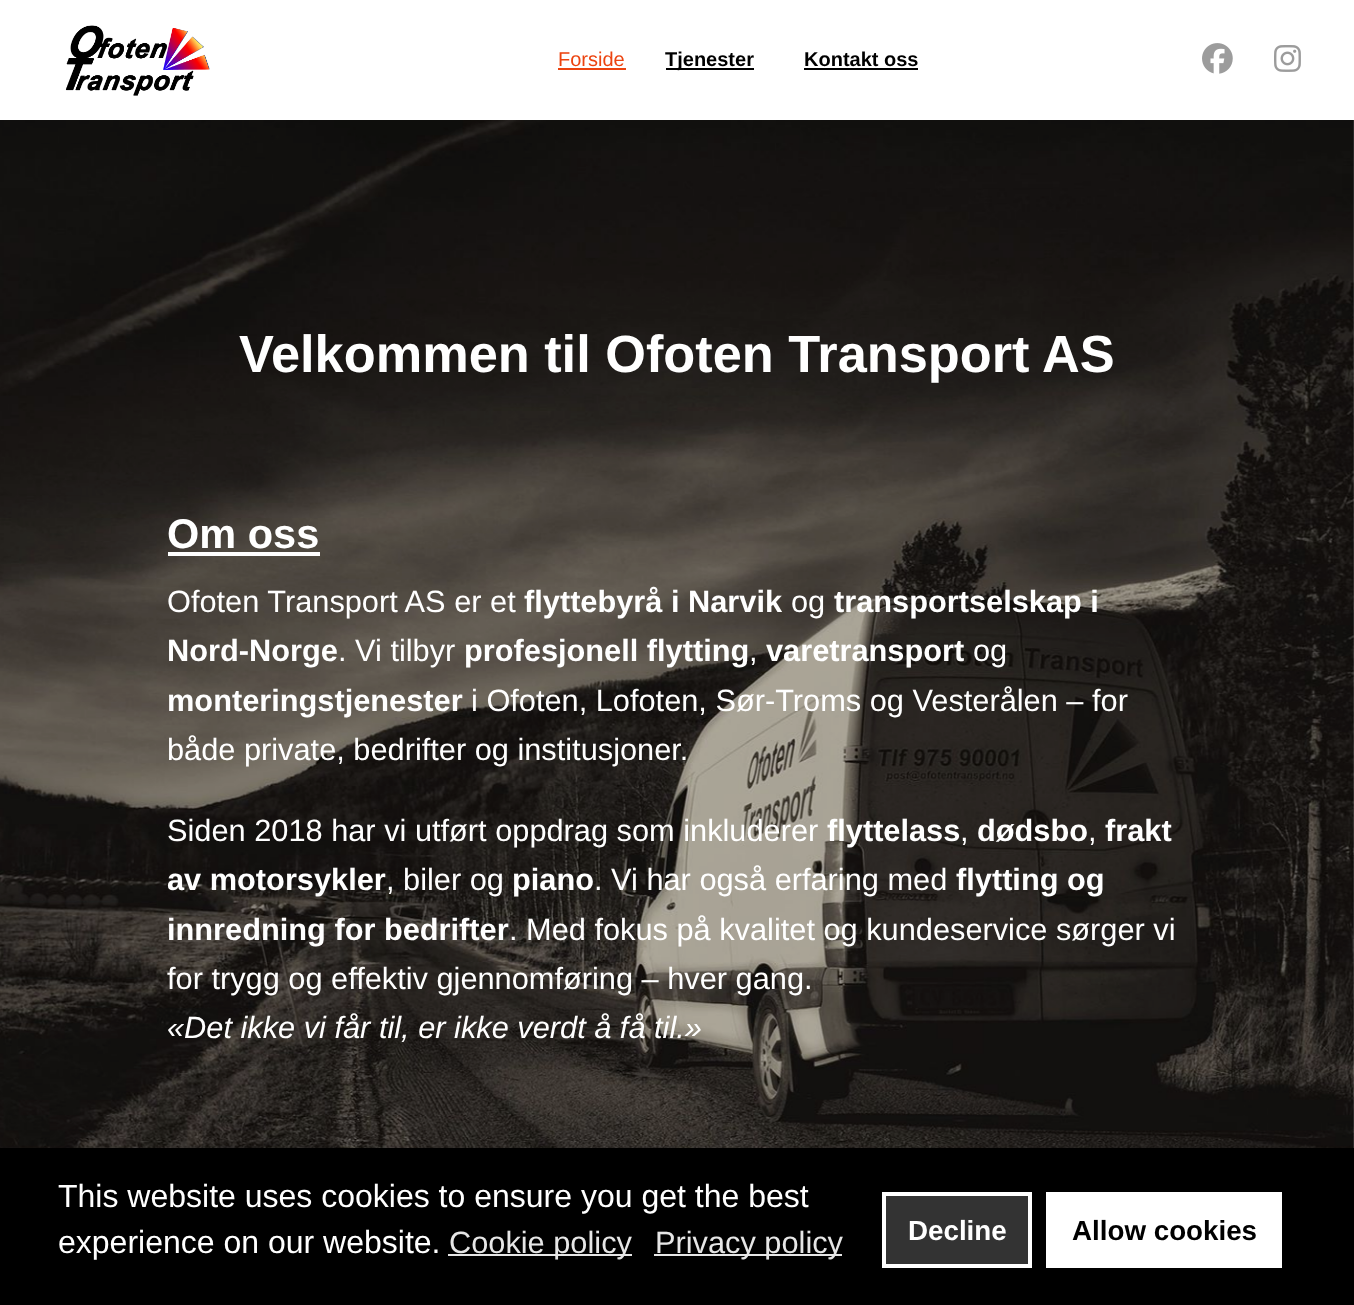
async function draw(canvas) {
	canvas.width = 1354;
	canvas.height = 1305;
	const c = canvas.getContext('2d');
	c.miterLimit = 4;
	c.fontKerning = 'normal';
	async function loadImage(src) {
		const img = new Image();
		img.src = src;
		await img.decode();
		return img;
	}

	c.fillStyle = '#fff';
	c.fillRect(0, 0, 1354, 1305);
	c.drawImage(await loadImage('img1.png'), 65, 25, 145, 71);
	c.font = '20px Liberation Sans';
	c.fillStyle = '#ec430f';
	c.fillText('Forside', 558, 66);
	c.fillRect(558, 68, 68, 2);
	c.fillStyle = '#000';
	c.fillRect(666, 68, 88, 2);
	c.font = 'bold 20px Liberation Sans';
	c.fillText('Tjenester', 665, 66);
	c.fillText('Kontakt oss', 804, 66);
	c.fillRect(804, 68, 114, 2);
	c.drawImage(await loadImage('img2.png'), 1202, 43, 31, 31);
	c.drawImage(await loadImage('img3.png'), 1274, 45, 27, 27);
	c.drawImage(await loadImage('img4.png'), 0, 120, 1354, 1028);
	c.font = 'bold 52.3px Liberation Sans';
	c.fillStyle = '#fff';
	c.fillText('Velkommen til Ofoten Transport AS', 239, 372);
	c.font = 'bold 41.5px Liberation Sans';
	c.fillText('Om oss', 167, 548);
	c.fillRect(168, 552, 152, 4);
	c.font = '30.75px Liberation Sans';
	c.fillText('Ofoten Transport AS er et', 167, 612);
	c.font = 'bold 30.75px Liberation Sans';
	c.fillText('flyttebyrå i Narvik', 524, 612);
	c.font = '30.75px Liberation Sans';
	c.fillText('og', 791, 612);
	c.font = 'bold 30.75px Liberation Sans';
	c.fillText('transportselskap i', 834, 612);
	c.fillText('Nord-Norge', 167, 661);
	c.font = '30.75px Liberation Sans';
	c.fillText('. Vi tilbyr', 338, 661);
	c.font = 'bold 30.75px Liberation Sans';
	c.fillText('profesjonell flytting', 464, 661);
	c.font = '30.75px Liberation Sans';
	c.fillText(',', 749, 661);
	c.font = 'bold 30.75px Liberation Sans';
	c.fillText('varetransport', 766, 661);
	c.font = '30.75px Liberation Sans';
	c.fillText('og', 973, 661);
	c.font = 'bold 30.75px Liberation Sans';
	c.fillText('monteringstjenester', 167, 711);
	c.font = '30.75px Liberation Sans';
	for (const [text, x, y] of [
		['i Ofoten, Lofoten, Sør-Troms og Vesterålen – for', 471, 711],
		['både private, bedrifter og institusjoner.', 167, 760],
		['Siden 2018 har vi utført oppdrag som inkluderer', 167, 841],
	]) {
		c.fillText(text, x, y);
	}
	c.font = 'bold 30.75px Liberation Sans';
	c.fillText('flyttelass', 827, 841);
	c.font = '30.75px Liberation Sans';
	c.fillText(',', 960, 841);
	c.font = 'bold 30.75px Liberation Sans';
	c.fillText('dødsbo', 977, 841);
	c.font = '30.75px Liberation Sans';
	c.fillText(',', 1088, 841);
	c.font = 'bold 30.75px Liberation Sans';
	c.fillText('frakt', 1105, 841);
	c.fillText('av motorsykler', 167, 890);
	c.font = '30.75px Liberation Sans';
	c.fillText(', biler og', 386, 890);
	c.font = 'bold 30.75px Liberation Sans';
	c.fillText('piano', 512, 890);
	c.font = '30.75px Liberation Sans';
	c.fillText('. Vi har også erfaring med', 594, 890);
	c.font = 'bold 30.75px Liberation Sans';
	c.fillText('flytting og', 956, 890);
	c.fillText('innredning for bedrifter', 167, 940);
	c.font = '30.75px Liberation Sans';
	c.fillText('. Med fokus på kvalitet og kundeservice sørger vi', 509, 940);
	c.fillText('for trygg og effektiv gjennomføring – hver gang.', 167, 989);
	c.font = 'italic 30.75px Liberation Sans';
	c.fillText('«Det ikke vi får til, er ikke verdt å få til.»', 167, 1038);
	c.fillStyle = '#000';
	c.fillRect(0, 1148, 1354, 157);
	c.font = '32px Liberation Sans';
	c.fillStyle = '#fff';
	c.fillText('This website uses cookies to ensure you get the best', 58, 1207);
	c.fillText('experience on our website.', 58, 1253);
	c.fillStyle = '#e6e6e6';
	c.fillRect(448, 1254, 184, 2);
	c.font = '30.75px Liberation Sans';
	c.fillText('Cookie policy', 449, 1253);
	c.fillRect(654, 1254, 188, 2);
	c.fillText('Privacy policy', 655, 1253);
	c.fillStyle = '#333';
	c.beginPath();
	c.rect(884, 1194, 146, 72);
	c.fill();
	c.strokeStyle = '#fff';
	c.lineWidth = 4;
	c.stroke();
	c.font = 'bold 27.75px Liberation Sans';
	c.fillStyle = '#fff';
	c.fillText('Decline', 908, 1240);
	c.fillRect(1046, 1192, 236, 76);
	c.fillStyle = '#000';
	c.fillText('Allow cookies', 1072, 1240);
}

draw(document.querySelector('canvas'));
